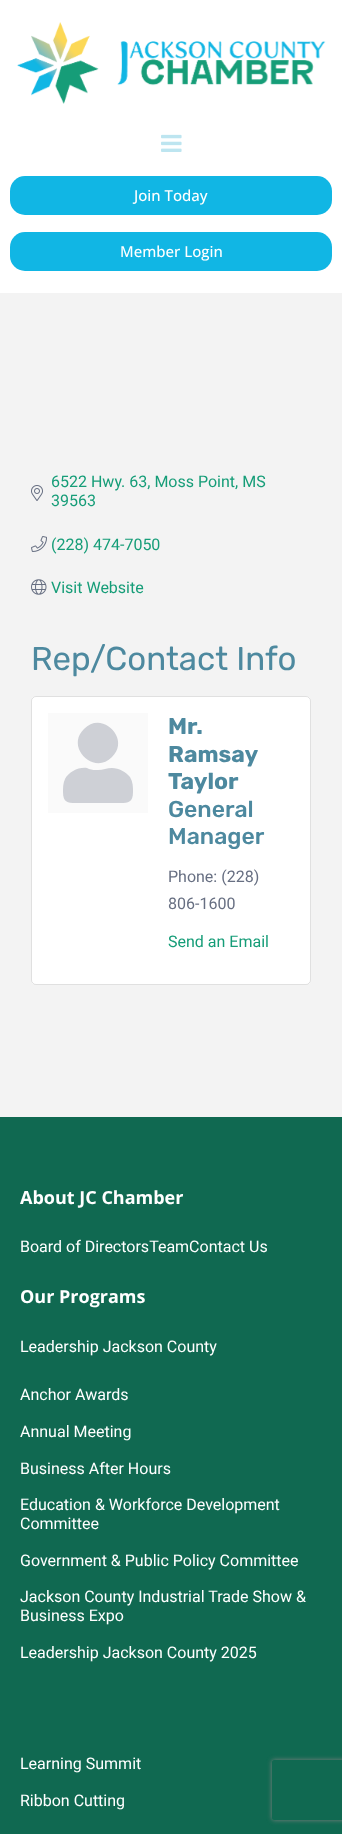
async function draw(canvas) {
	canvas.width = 342;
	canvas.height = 1834;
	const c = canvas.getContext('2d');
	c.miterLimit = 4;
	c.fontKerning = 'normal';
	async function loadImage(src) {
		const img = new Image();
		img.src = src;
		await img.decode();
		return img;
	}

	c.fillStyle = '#106951';
	c.fillRect(0, 0, 342, 1834);
	c.fillStyle = '#fff';
	c.fillRect(0, 0, 342, 293);
	c.drawImage(await loadImage('img1.png'), 17, 22, 309, 82);
	c.drawImage(await loadImage('img2.png'), 161, 134, 21, 18);
	c.fillStyle = '#11b6e4';
	c.beginPath();
	c.roundRect(10, 176, 322, 39, 15);
	c.fill();
	c.font = '500 15px Open Sans';
	c.fillStyle = '#fff';
	c.fillText('Join Today', 134, 201);
	c.fillStyle = '#11b6e4';
	c.beginPath();
	c.roundRect(10, 232, 322, 39, 15);
	c.fill();
	c.fillStyle = '#fff';
	c.fillText('Member Login', 120, 257);
	c.fillStyle = '#f3f3f3';
	c.fillRect(0, 293, 342, 824);
	c.font = '16px Roboto';
	c.fillStyle = '#169d78';
	c.fillText('6522 Hwy. 63, Moss Point, MS', 51, 487);
	c.drawImage(await loadImage('img3.png'), 31, 485, 12, 16);
	c.fillText('39563', 51, 506);
	c.drawImage(await loadImage('img4.png'), 31, 536, 16, 16);
	c.fillText('(228) 474-7050', 51, 550);
	c.drawImage(await loadImage('img5.png'), 31, 579, 16, 16);
	c.fillText('Visit Website', 51, 593);
	c.font = '33px Rubik';
	c.fillStyle = '#4d899f';
	c.fillText('Rep/Contact Info', 31, 670);
	c.fillStyle = '#fff';
	c.beginPath();
	c.roundRect(31, 696, 280, 289, 5);
	c.fill();
	c.beginPath();
	c.roundRect(31.5, 696.5, 279, 288, 4.5);
	c.strokeStyle = '#0000001f';
	c.stroke();
	c.fillStyle = '#fafafa';
	c.fillRect(48, 713, 100, 100);
	c.fillStyle = '#ced0d6';
	c.beginPath();
	c.moveTo(112, 757);
	c.bezierCurveTo(94, 776, 65, 747, 84, 729);
	c.bezierCurveTo(102, 710, 131, 739, 112, 757);
	c.closePath();
	c.moveTo(112, 768);
	c.bezierCurveTo(119, 768, 126, 772, 130, 777);
	c.bezierCurveTo(133, 782, 133, 787, 133, 792);
	c.bezierCurveTo(133, 804, 127, 803, 116, 803);
	c.lineTo(80, 803);
	c.bezierCurveTo(69, 803, 63, 804, 63, 792);
	c.bezierCurveTo(63, 788, 63, 783, 65, 779);
	c.bezierCurveTo(69, 772, 78, 767, 87, 768);
	c.lineTo(89, 769);
	c.bezierCurveTo(92, 770, 95, 770, 98, 770);
	c.bezierCurveTo(103, 770, 107, 768, 112, 768);
	c.closePath();
	c.fill();
	c.font = 'bold 23px Rubik';
	c.fillStyle = '#4d899f';
	for (const [text, x, y] of [
		['Mr.', 168, 734],
		['Ramsay', 168, 762],
		['Taylor', 168, 789],
	]) {
		c.fillText(text, x, y);
	}
	c.font = '500 23px Rubik';
	c.fillText('General', 168, 817);
	c.fillText('Manager', 168, 844);
	c.font = '16px Roboto';
	c.fillStyle = '#676f82';
	c.fillText('Phone: (228)', 168, 882);
	c.fillText('806-1600', 168, 909);
	c.fillStyle = '#169d78';
	c.fillText('Send an Email', 168, 947);
	c.font = 'bold 18px Open Sans';
	c.fillStyle = '#fff';
	c.fillText('About JC Chamber', 20, 1204);
	c.font = '16px Roboto';
	c.fillText('Board of DirectorsTeamContact Us', 20, 1252);
	c.font = 'bold 18px Open Sans';
	c.fillText('Our Programs', 20, 1303);
	c.font = '16px Roboto';
	for (const [text, x, y] of [
		['Leadership Jackson County', 20, 1352],
		['Anchor Awards', 20, 1400],
		['Annual Meeting', 20, 1437],
		['Business After Hours', 20, 1474],
		['Education & Workforce Development', 20, 1510],
		['Committee', 20, 1529],
		['Government & Public Policy Committee', 20, 1566],
		['Jackson County Industrial Trade Show &', 20, 1602],
		['Business Expo', 20, 1621],
		['Leadership Jackson County 2025', 20, 1658],
		['Learning Summit', 20, 1769],
		['Ribbon Cutting', 20, 1806],
	]) {
		c.fillText(text, x, y);
	}
	c.save();
	c.beginPath();
	c.moveTo(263, 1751);
	c.lineTo(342, 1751);
	c.lineTo(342, 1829);
	c.lineTo(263, 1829);
	c.closePath();
	c.moveTo(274, 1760);
	c.lineTo(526, 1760);
	c.bezierCurveTo(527, 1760, 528, 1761, 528, 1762);
	c.lineTo(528, 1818);
	c.bezierCurveTo(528, 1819, 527, 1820, 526, 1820);
	c.lineTo(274, 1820);
	c.bezierCurveTo(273, 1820, 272, 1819, 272, 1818);
	c.lineTo(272, 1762);
	c.bezierCurveTo(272, 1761, 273, 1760, 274, 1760);
	c.closePath();
	c.clip('evenodd');
	c.fillStyle = '#808080';
	c.filter = 'blur(2.5px)';
	c.beginPath();
	c.roundRect(272, 1760, 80, 60, 2);
	c.fill();
	c.filter = 'none';
	c.restore();
}

draw(document.querySelector('canvas'));
